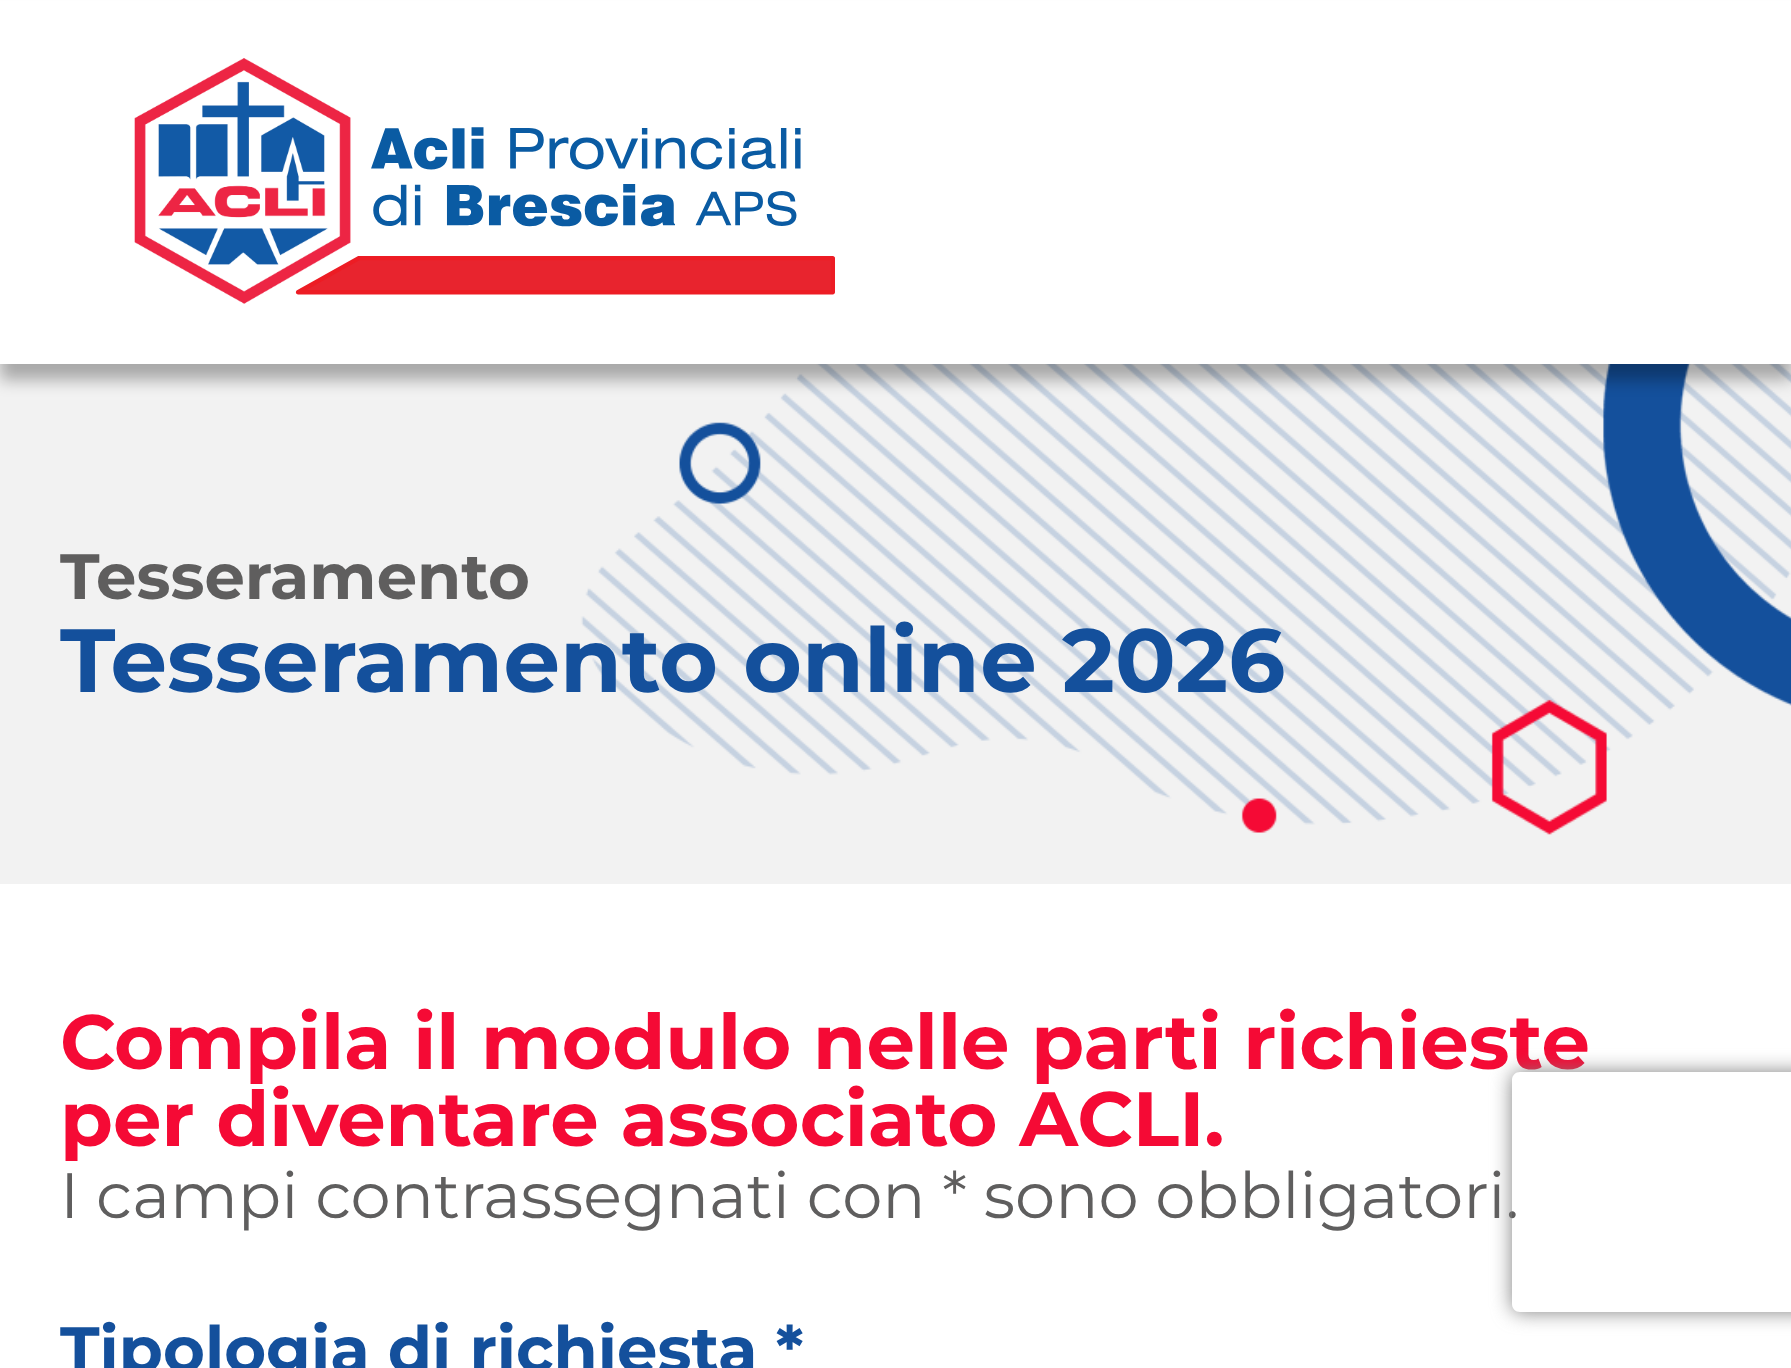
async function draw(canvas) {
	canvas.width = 1791;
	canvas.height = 1368;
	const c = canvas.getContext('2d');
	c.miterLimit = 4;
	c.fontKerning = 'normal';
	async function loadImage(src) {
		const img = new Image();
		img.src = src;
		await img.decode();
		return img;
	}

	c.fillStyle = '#fff';
	c.fillRect(0, 0, 1791, 1368);
	c.drawImage(await loadImage('img2.png'), 0, 364, 1791, 520);
	c.fillStyle = '#0000004d';
	c.filter = 'blur(8px)';
	c.beginPath();
	c.rect(0, 16, 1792, 364);
	c.fill();
	c.filter = 'none';
	c.fillStyle = '#fff';
	c.fillRect(0, 1, 1791, 363);
	c.drawImage(await loadImage('img1.png'), 134, 58, 701, 246);
	c.font = 'bold 64px Montserrat';
	c.fillStyle = '#5f5e5e';
	c.fillText('Tesseramento', 60, 599);
	c.font = 'bold 89.6px Montserrat';
	c.fillStyle = '#14509c';
	c.fillText('Tesseramento online 2026', 60, 692);
	c.font = 'bold 76.75px Montserrat';
	c.fillStyle = '#f50a35';
	c.fillText('Compila il modulo nelle parti richieste', 60, 1069);
	c.fillText('per diventare associato ACLI.', 60, 1146);
	c.font = '64px Montserrat';
	c.fillStyle = '#5f5e5e';
	c.fillText('I campi contrassegnati con * sono obbligatori.', 60, 1218);
	c.font = 'bold 64px Montserrat';
	c.fillStyle = '#14509c';
	c.fillText('Tipologia di richiesta *', 60, 1372);
	c.save();
	c.beginPath();
	c.moveTo(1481, 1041);
	c.lineTo(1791, 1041);
	c.lineTo(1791, 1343);
	c.lineTo(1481, 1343);
	c.closePath();
	c.moveTo(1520, 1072);
	c.lineTo(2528, 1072);
	c.bezierCurveTo(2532.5, 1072, 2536, 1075.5, 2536, 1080);
	c.lineTo(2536, 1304);
	c.bezierCurveTo(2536, 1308.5, 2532.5, 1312, 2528, 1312);
	c.lineTo(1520, 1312);
	c.bezierCurveTo(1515.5, 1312, 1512, 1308.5, 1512, 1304);
	c.lineTo(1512, 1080);
	c.bezierCurveTo(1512, 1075.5, 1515.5, 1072, 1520, 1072);
	c.closePath();
	c.clip('evenodd');
	c.fillStyle = '#808080';
	c.filter = 'blur(10px)';
	c.beginPath();
	c.roundRect(1512, 1072, 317, 240, 8);
	c.fill();
	c.filter = 'none';
	c.restore();
}

draw(document.querySelector('canvas'));
